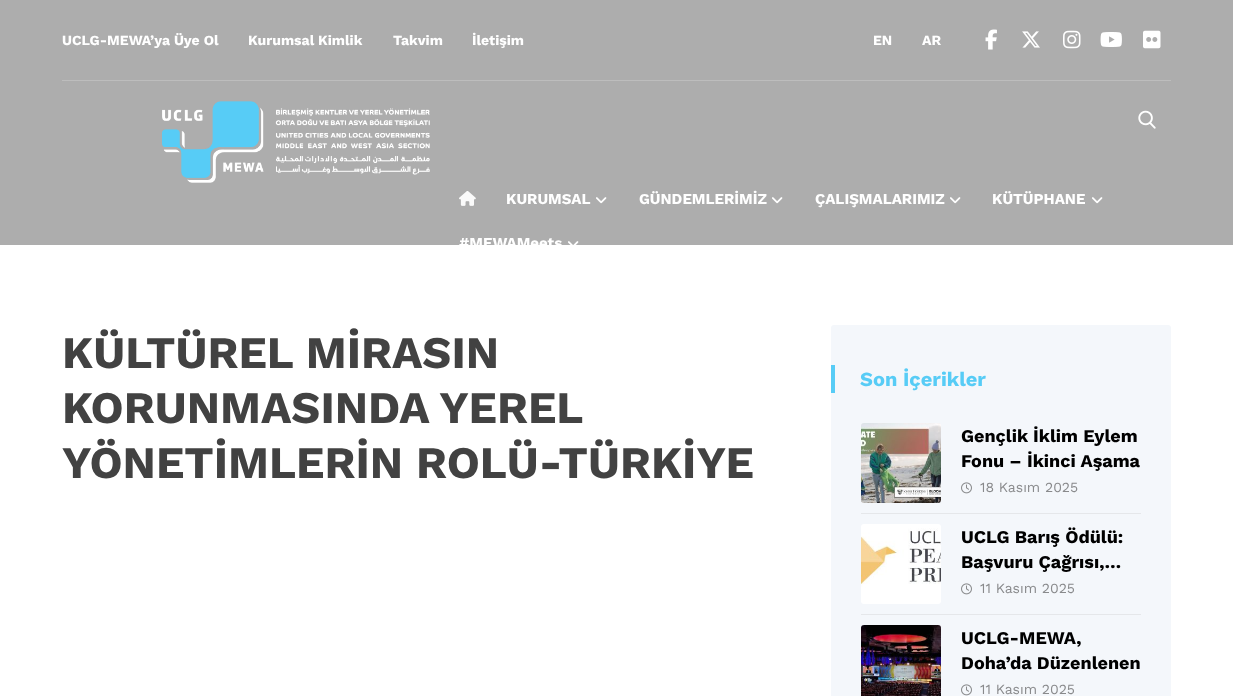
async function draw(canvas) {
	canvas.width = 1233;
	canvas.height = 696;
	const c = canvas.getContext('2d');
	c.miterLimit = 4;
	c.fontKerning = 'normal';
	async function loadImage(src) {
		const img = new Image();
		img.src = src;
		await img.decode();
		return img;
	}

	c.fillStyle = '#fff';
	c.fillRect(0, 0, 1233, 696);
	c.fillStyle = '#adadad';
	c.fillRect(0, 0, 1233, 245);
	c.fillStyle = '#bdbdbd';
	c.fillRect(62, 80, 1109, 1);
	c.font = 'bold 14px Work Sans';
	c.fillStyle = '#fff';
	for (const [text, x, y] of [
		['UCLG-MEWA’ya Üye Ol', 62, 45],
		['Kurumsal Kimlik', 248, 45],
		['Takvim', 393, 45],
		['İletişim', 472, 45],
		['EN', 873, 45],
		['AR', 922, 45],
	]) {
		c.fillText(text, x, y);
	}
	c.drawImage(await loadImage('img1.png'), 985, 29, 12, 21);
	c.drawImage(await loadImage('img2.png'), 1022, 31, 18, 17);
	c.drawImage(await loadImage('img3.png'), 1063, 30, 18, 19);
	c.drawImage(await loadImage('img4.png'), 1100, 32, 22, 15);
	c.drawImage(await loadImage('img5.png'), 1143, 30, 18, 19);
	c.drawImage(await loadImage('img6.png'), 162, 101, 268, 82);
	c.drawImage(await loadImage('img7.png'), 1138, 110, 18, 19);
	c.drawImage(await loadImage('img8.png'), 459, 191, 17, 15);
	c.font = 'bold 15px Work Sans';
	c.fillText('KURUMSAL', 506, 204);
	c.drawImage(await loadImage('img9.png'), 596, 197, 11, 7);
	c.fillText('GÜNDEMLERİMİZ', 639, 204);
	c.drawImage(await loadImage('img9.png'), 772, 197, 11, 7);
	c.fillText('ÇALIŞMALARIMIZ', 815, 204);
	c.drawImage(await loadImage('img9.png'), 950, 197, 11, 7);
	c.fillText('KÜTÜPHANE', 992, 204);
	c.drawImage(await loadImage('img9.png'), 1092, 197, 11, 7);
	c.fillText('#MEWAMeets', 459, 248);
	c.drawImage(await loadImage('img10.png'), 568, 241, 11, 4);
	c.font = 'bold 45px Work Sans';
	c.fillStyle = '#424242';
	c.fillText('KÜLTÜREL MİRASIN', 62, 368);
	c.wordSpacing = '-1px';
	c.fillText('KORUNMASINDA YEREL', 62, 423);
	c.wordSpacing = '0px';
	c.fillText('YÖNETİMLERİN ROLÜ-TÜRKİYE', 62, 478);
	c.fillStyle = '#f4f7fb';
	c.beginPath();
	c.roundRect(831, 325, 340, 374, 3);
	c.fill();
	c.fillStyle = '#57ccf6';
	c.fillRect(831, 365, 4, 28);
	c.font = 'bold 20px Work Sans';
	c.fillText('Son İçerikler', 860, 386);
	c.fillStyle = '#e5e7ea';
	c.fillRect(861, 513, 280, 1);
	c.drawImage(await loadImage('img11.png'), 861, 423, 80, 80);
	c.font = 'bold 18px Work Sans';
	c.fillStyle = '#000';
	c.fillText('Gençlik İklim Eylem', 961, 442);
	c.fillText('Fonu – İkinci Aşama', 961, 467);
	c.drawImage(await loadImage('img12.png'), 961, 482, 11, 12);
	c.font = '14px Work Sans';
	c.fillStyle = '#898a8c';
	c.fillText('18 Kasım 2025', 980, 492);
	c.fillStyle = '#e5e7ea';
	c.fillRect(861, 614, 280, 1);
	c.drawImage(await loadImage('img13.png'), 861, 524, 80, 80);
	c.font = 'bold 18px Work Sans';
	c.fillStyle = '#000';
	c.fillText('UCLG Barış Ödülü:', 961, 543);
	c.fillText('Başvuru Çağrısı,…', 961, 568);
	c.drawImage(await loadImage('img12.png'), 961, 583, 11, 12);
	c.font = '14px Work Sans';
	c.fillStyle = '#898a8c';
	c.fillText('11 Kasım 2025', 980, 593);
	c.drawImage(await loadImage('img14.png'), 861, 625, 80, 71);
	c.font = 'bold 18px Work Sans';
	c.fillStyle = '#000';
	c.fillText('UCLG-MEWA,', 961, 644);
	c.fillText('Doha’da Düzenlenen', 961, 669);
	c.drawImage(await loadImage('img12.png'), 961, 684, 11, 12);
	c.font = '14px Work Sans';
	c.fillStyle = '#898a8c';
	c.fillText('11 Kasım 2025', 980, 694);
}

draw(document.querySelector('canvas'));
